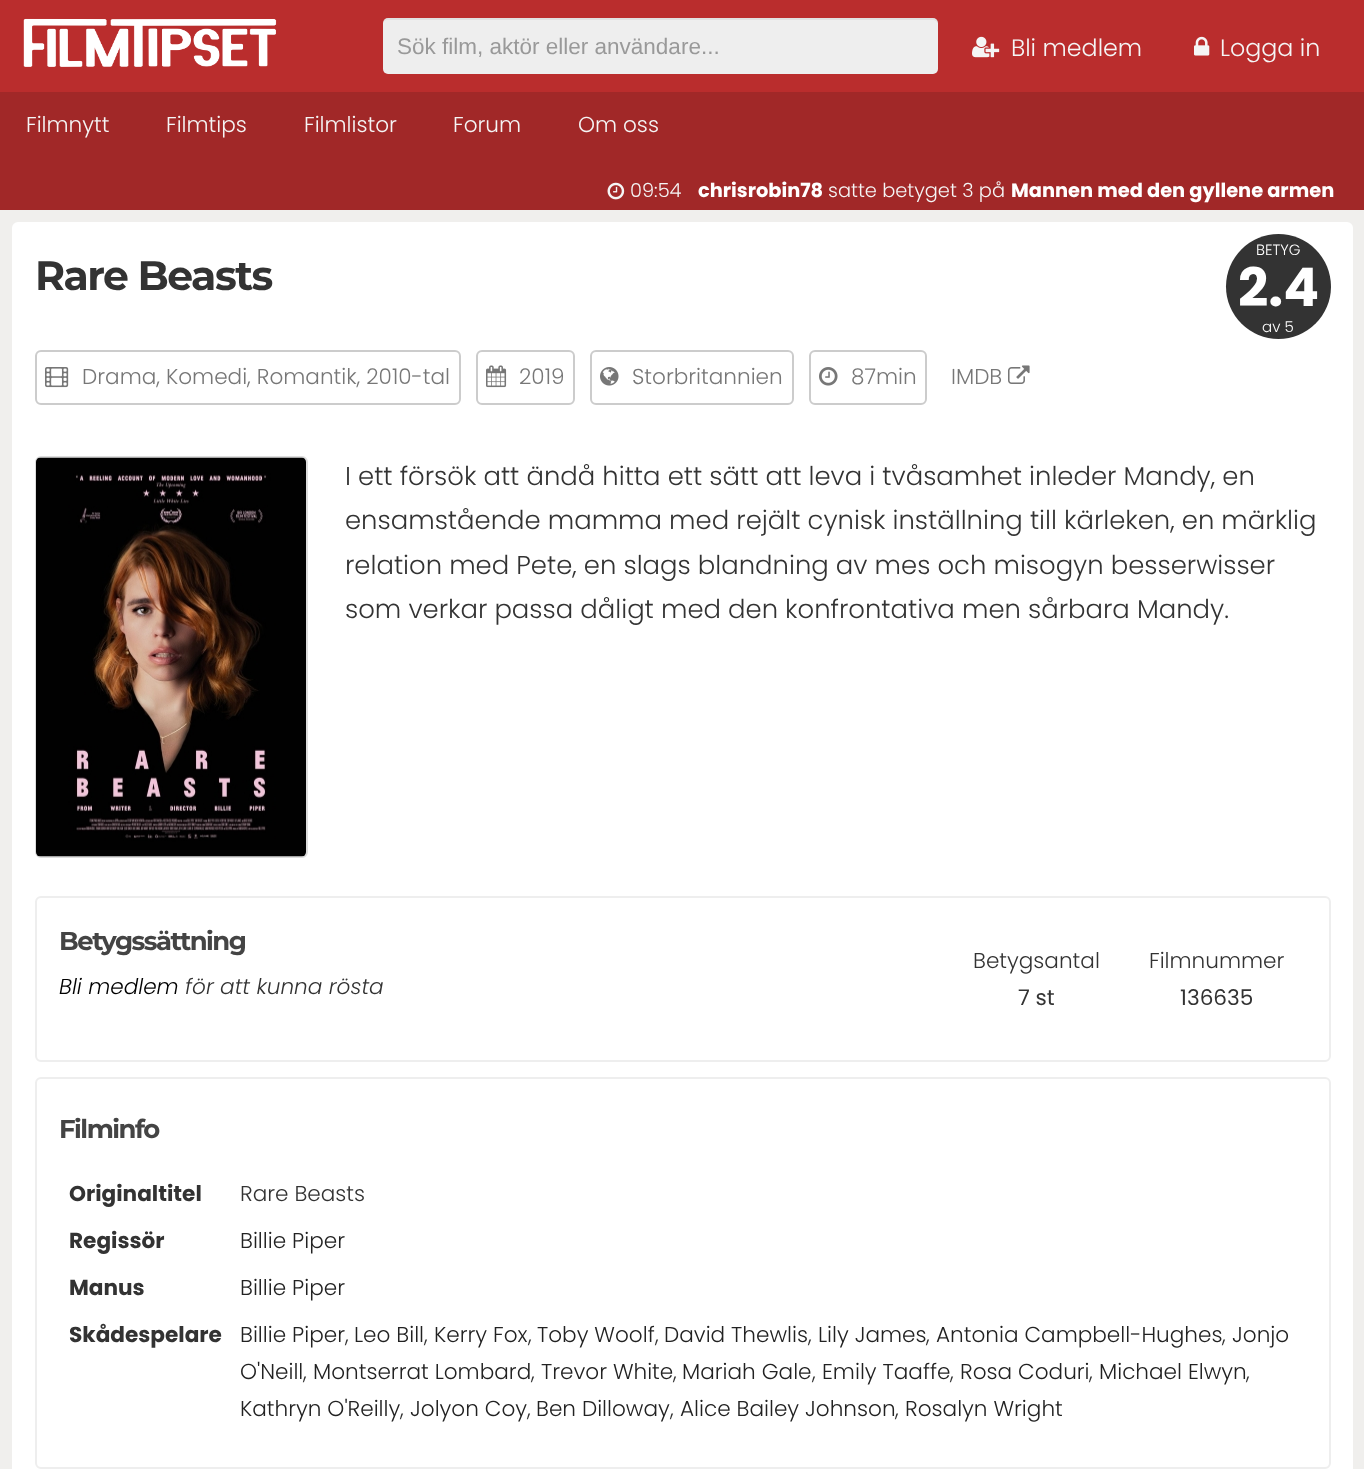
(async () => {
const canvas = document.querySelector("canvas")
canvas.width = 1364
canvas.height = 1469
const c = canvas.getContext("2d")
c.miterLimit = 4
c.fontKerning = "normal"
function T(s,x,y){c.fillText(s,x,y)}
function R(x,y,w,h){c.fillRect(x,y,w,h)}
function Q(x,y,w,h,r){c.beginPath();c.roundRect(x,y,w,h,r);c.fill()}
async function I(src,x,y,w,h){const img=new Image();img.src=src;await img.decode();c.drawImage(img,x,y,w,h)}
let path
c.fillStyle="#f0efed"
R(0,0,1364,1469)
c.fillStyle="#ba2d2d"
R(0,0,1364,92)
await I("1.png",23,18,254,49)
c.fillStyle="#eee"
Q(383,18,555,56,5)
c.fillStyle="#0000000d"
path = new Path2D("M387 20h546c2 0 5 2 5 4v-1c0-3-2-5-5-5h-545c-2 0-4 2-5 4c1-1 3-2 4-2z")
c.fill(path)
c.font="22.5px Liberation Sans"
c.fillStyle="#999"
T("Sök film, aktör eller användare...",397,54)
await I("2.png",972,36,28,22)
c.font="300 23.75px Poppins"
c.fillStyle="#f5f5f5"
T("Bli medlem",1011,56)
await I("3.png",1194,36,16,20)
T("Logga in",1220,56)
c.fillStyle="#a12828"
R(0,92,1364,118)
c.font="300 21.6px Poppins"
c.fillStyle="#f5f5f5"
T("Filmnytt",26,132)
T("Filmtips",166,132)
T("Filmlistor",304,132)
T("Forum",453,132)
T("Om oss",578,132)
await I("4.png",607,182,18,18)
c.font="300 19.4px Poppins"
T("09:54",630,197)
c.font="bold 19.4px Poppins"
c.fillStyle="#fff"
T("chrisrobin78",698,197)
c.font="300 19.4px Poppins"
c.fillStyle="#f5f5f5"
T("satte betyget 3 på",828,197)
c.font="bold 19.4px Poppins"
c.fillStyle="#fff"
T("Mannen med den gyllene armen",1011,197)
Q(12,222,1341,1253,6)
c.letterSpacing="-1.5px"
c.font="bold 41px Montserrat"
c.fillStyle="#333"
T("Rare Beasts",35,290)
c.beginPath()
c.arc(1278.5,286.5,52.5,0,7)
c.fill()
c.letterSpacing="0px"
c.font="300 15px Poppins"
c.fillStyle="#fff"
T("BETYG",1256,255)
c.font="bold 53px Poppins"
T("2.4",1238,306)
c.font="300 15px Poppins"
T("av 5",1262,332)
c.beginPath()
c.roundRect(36,351,424,53,5)
c.strokeStyle="#ccc"
c.lineWidth=2
c.stroke()
await I("5.png",45,367,24,21)
c.font="300 21.6px Poppins"
c.fillStyle="#777"
T("Drama, Komedi, Romantik, 2010-tal",82,384)
c.beginPath()
c.roundRect(477,351,97,53,5)
c.stroke()
await I("6.png",486,365,21,23)
T("2019",519,384)
c.beginPath()
c.roundRect(591,351,202,53,5)
c.stroke()
await I("7.png",600,367,19,19)
T("Storbritannien",632,384)
c.beginPath()
c.roundRect(810,351,116,53,5)
c.stroke()
await I("8.png",819,367,19,19)
T("87min",851,384)
T("IMDB",951,384)
await I("9.png",1008,365,22,19)
c.beginPath()
c.roundRect(36,457,271,400,5)
c.strokeStyle="#ddd"
c.stroke()
await I("10.png",36,457,270,400)
c.font="300 25.9px Poppins"
c.fillStyle="#333"
T("I ett försök att ändå hitta ett sätt att leva i tvåsamhet inleder Mandy, en",345,485)
T("ensamstående mamma med rejält cynisk inställning till kärleken, en märklig",345,529)
T("relation med Pete, en slags blandning av mes och misogyn besserwisser",345,574)
T("som verkar passa dåligt med den konfrontativa men sårbara Mandy.",345,618)
c.beginPath()
c.roundRect(36,897,1294,164,5)
c.strokeStyle="#eee"
c.stroke()
c.letterSpacing="-1.5px"
c.font="bold 25.9px Montserrat"
c.fillStyle="#444"
T("Betygssättning",59,950)
c.letterSpacing="0px"
c.font="italic 300 21.6px Poppins"
c.fillStyle="#000"
T("Bli medlem",59,994)
c.fillStyle="#333"
T("för att kunna rösta",185,994)
c.font="300 21.6px Poppins"
T("Betygsantal",973,968)
c.font="21.6px Poppins"
T("7 st",1018,1005)
c.font="300 21.6px Poppins"
T("Filmnummer",1149,968)
c.font="21.6px Poppins"
T("136635",1180,1005)
c.beginPath()
c.roundRect(36,1078,1294,390,5)
c.stroke()
c.letterSpacing="-1.5px"
c.font="bold 25.9px Montserrat"
c.fillStyle="#444"
T("Filminfo",59,1138)
c.letterSpacing="0px"
c.font="bold 21.6px Poppins"
c.fillStyle="#333"
T("Originaltitel",69,1201)
c.font="300 21.6px Poppins"
T("Rare Beasts",240,1201)
c.font="bold 21.6px Poppins"
T("Regissör",69,1248)
c.font="300 21.6px Poppins"
c.fillStyle="#222"
T("Billie Piper",240,1248)
c.font="bold 21.6px Poppins"
c.fillStyle="#333"
T("Manus",69,1295)
c.font="300 21.6px Poppins"
c.fillStyle="#222"
T("Billie Piper",240,1295)
c.font="bold 21.6px Poppins"
c.fillStyle="#333"
T("Skådespelare",69,1342)
c.font="300 21.6px Poppins"
c.fillStyle="#222"
T("Billie Piper",240,1342)
c.fillStyle="#333"
T(",",345,1342)
c.fillStyle="#222"
T("Leo Bill",354,1342)
c.fillStyle="#333"
T(",",424,1342)
c.fillStyle="#222"
T("Kerry Fox",434,1342)
c.fillStyle="#333"
T(",",528,1342)
c.fillStyle="#222"
T("Toby Woolf",537,1342)
c.fillStyle="#333"
T(",",655,1342)
c.fillStyle="#222"
T("David Thewlis",664,1342)
c.fillStyle="#333"
T(",",808,1342)
c.fillStyle="#222"
T("Lily James",818,1342)
c.fillStyle="#333"
T(",",926,1342)
c.fillStyle="#222"
T("Antonia Campbell-Hughes",936,1342)
c.fillStyle="#333"
T(",",1222,1342)
c.fillStyle="#222"
T("Jonjo",1232,1342)
T("O'Neill",240,1379)
c.fillStyle="#333"
T(",",303,1379)
c.fillStyle="#222"
T("Montserrat Lombard",313,1379)
c.fillStyle="#333"
T(",",531,1379)
c.fillStyle="#222"
T("Trevor White",541,1379)
c.fillStyle="#333"
T(",",673,1379)
c.fillStyle="#222"
T("Mariah Gale",682,1379)
c.fillStyle="#333"
T(",",812,1379)
c.fillStyle="#222"
T("Emily Taaffe",822,1379)
c.fillStyle="#333"
T(",",950,1379)
c.fillStyle="#222"
T("Rosa Coduri",960,1379)
c.fillStyle="#333"
T(",",1089,1379)
c.fillStyle="#222"
T("Michael Elwyn",1099,1379)
c.fillStyle="#333"
T(",",1246,1379)
c.fillStyle="#222"
T("Kathryn O'Reilly",240,1416)
c.fillStyle="#333"
T(",",400,1416)
c.fillStyle="#222"
T("Jolyon Coy",410,1416)
c.fillStyle="#333"
T(",",527,1416)
c.fillStyle="#222"
T("Ben Dilloway",536,1416)
c.fillStyle="#333"
T(",",670,1416)
c.fillStyle="#222"
T("Alice Bailey Johnson",680,1416)
c.fillStyle="#333"
T(",",895,1416)
c.fillStyle="#222"
T("Rosalyn Wright",905,1416)
})()
